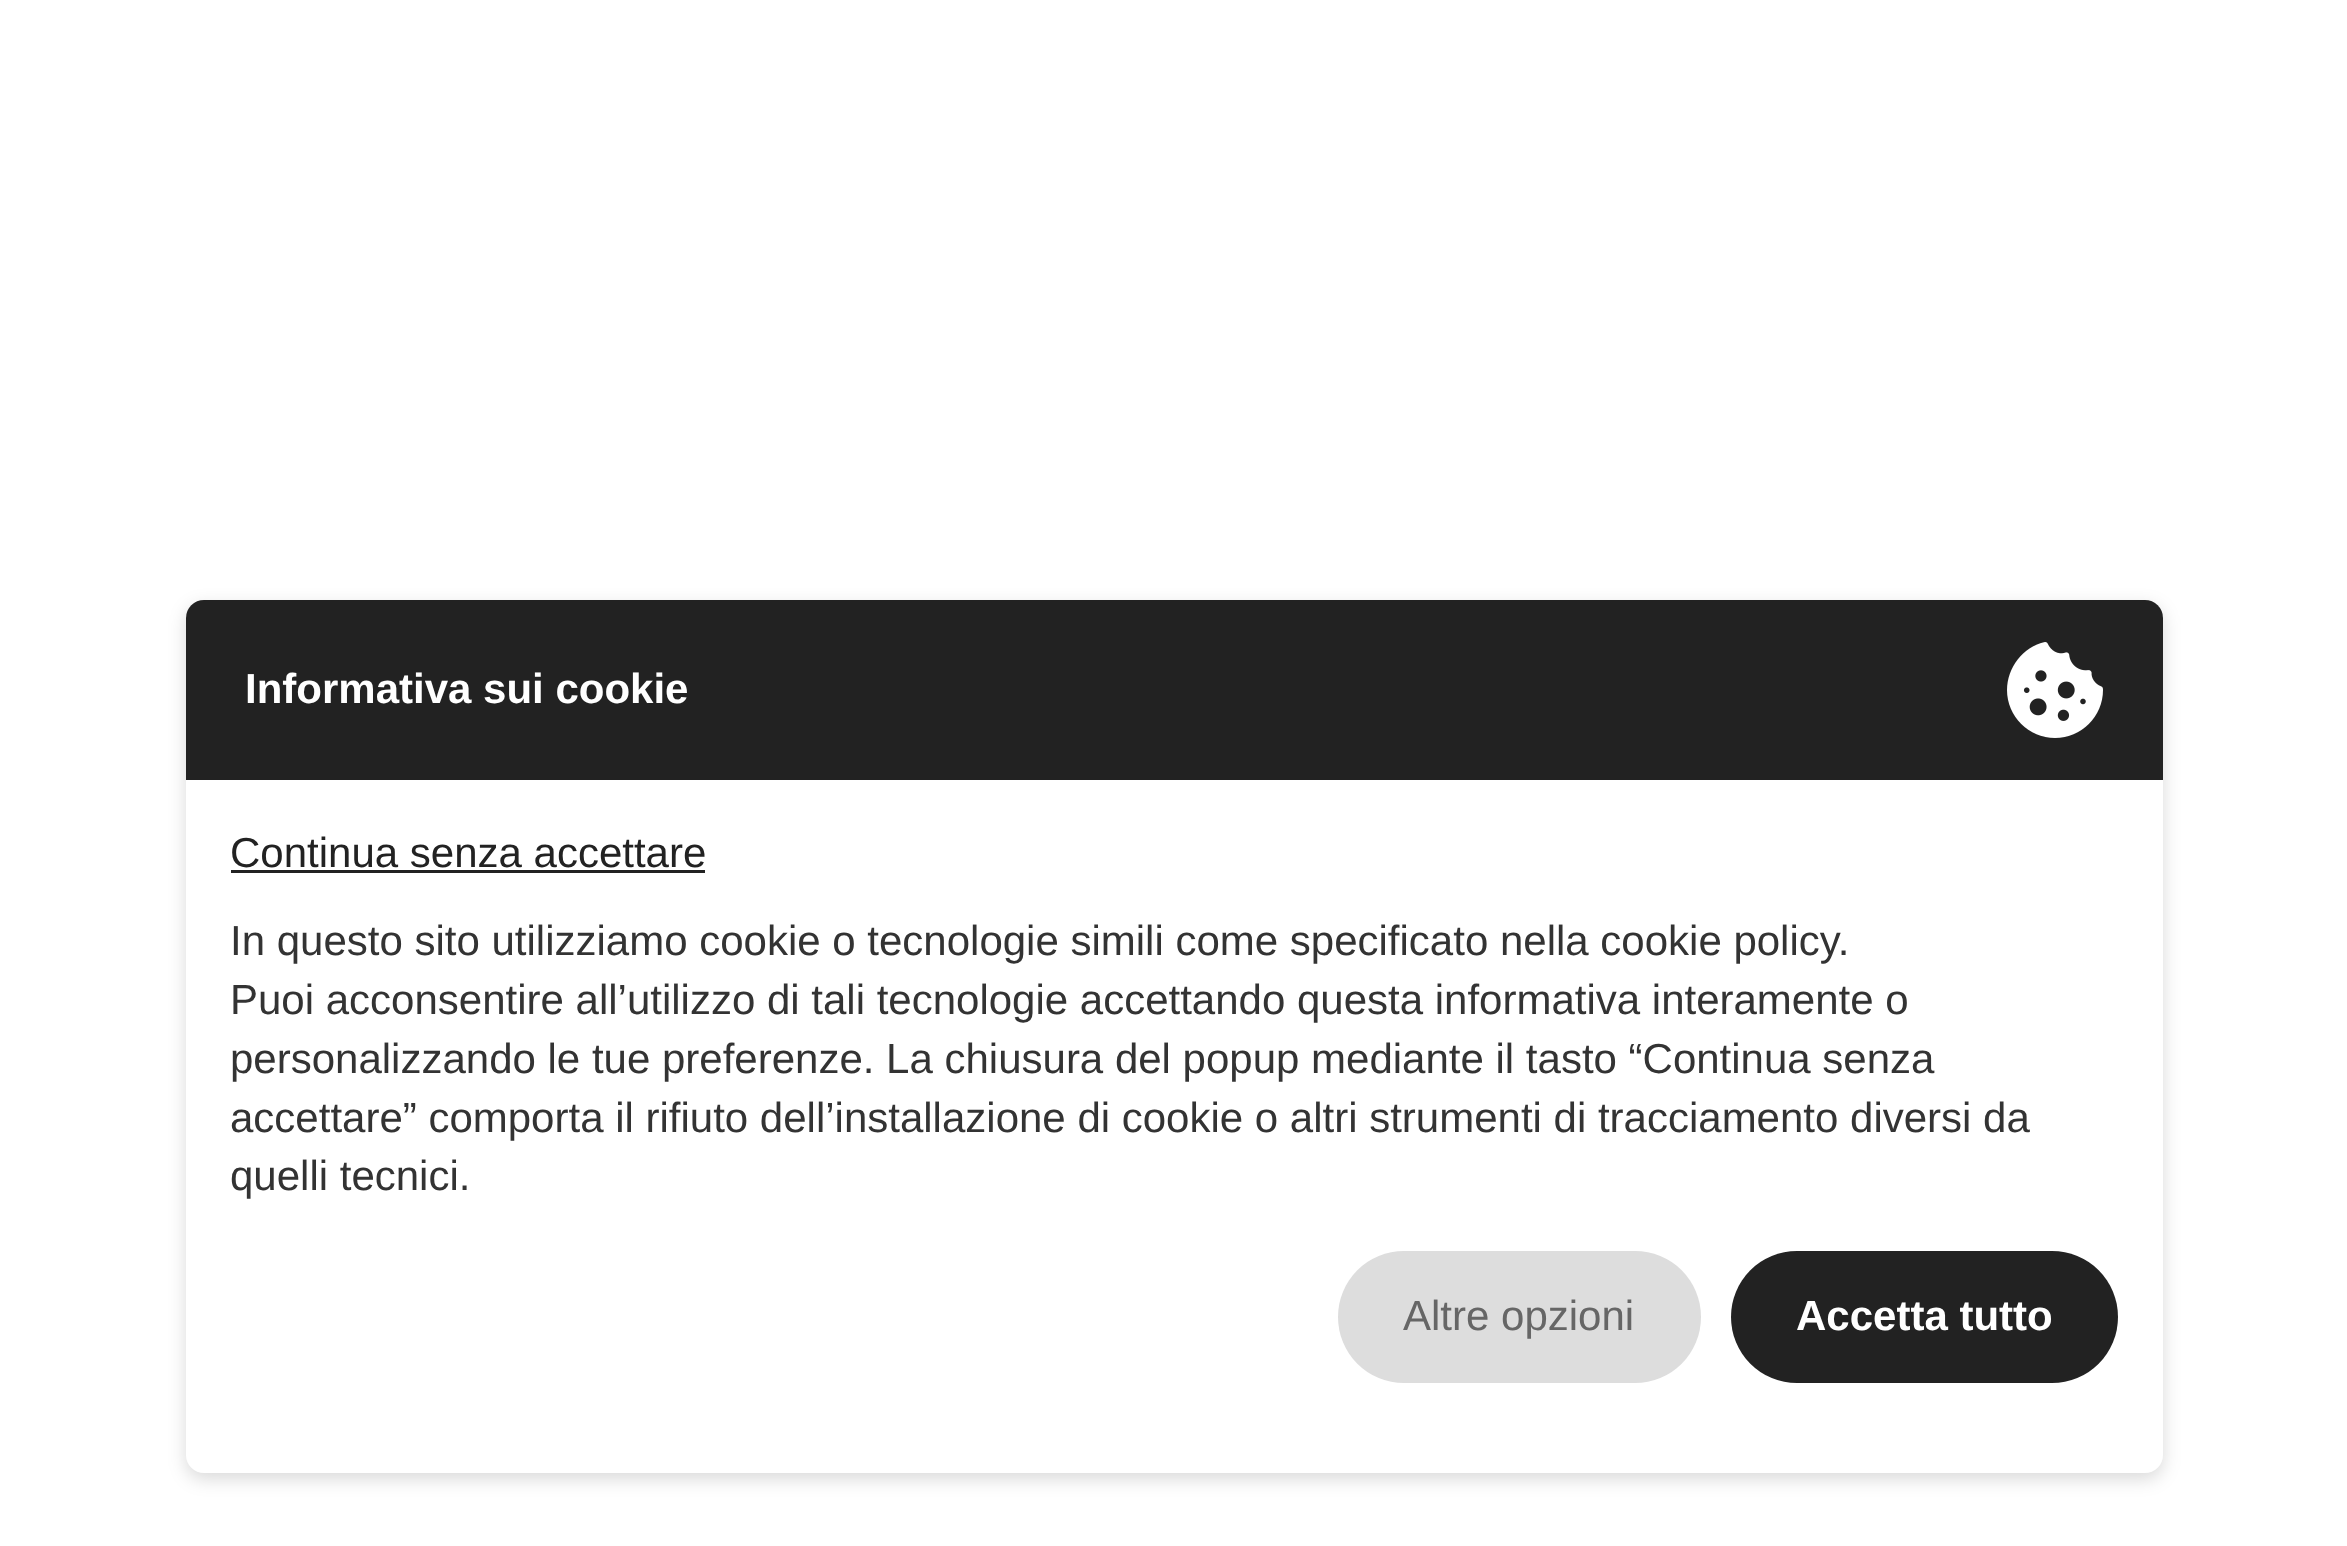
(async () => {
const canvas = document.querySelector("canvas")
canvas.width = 2347
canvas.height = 1546
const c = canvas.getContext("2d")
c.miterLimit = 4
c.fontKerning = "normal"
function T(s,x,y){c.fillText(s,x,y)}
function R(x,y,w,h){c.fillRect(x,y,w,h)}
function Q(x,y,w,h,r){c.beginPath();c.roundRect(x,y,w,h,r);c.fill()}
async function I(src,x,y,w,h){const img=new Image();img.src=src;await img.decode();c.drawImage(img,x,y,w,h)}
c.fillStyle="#fff"
R(0,0,2347,1546)
c.fillStyle="#00000026"
c.filter="blur(9px)"
c.beginPath()
c.roundRect(186,606,1977,873,18)
c.fill()
c.filter="none"
c.fillStyle="#fff"
Q(186,600,1977,873,18)
c.fillStyle="#222"
c.beginPath()
c.roundRect(186,600,1977,180,[18,18,0,0])
c.fill()
c.font="bold 42px Liberation Sans"
c.fillStyle="#fff"
T("Informativa sui cookie",245,703)
await I("1.png",2007,642,96,96)
c.font="42px Liberation Sans"
c.fillStyle="#222"
T("Continua senza accettare",230,867)
R(231,870,474,3)
c.fillStyle="#333"
T("In questo sito utilizziamo cookie o tecnologie simili come specificato nella cookie policy.",230,955)
T("Puoi acconsentire all’utilizzo di tali tecnologie accettando questa informativa interamente o",230,1014)
T("personalizzando le tue preferenze. La chiusura del popup mediante il tasto “Continua senza",230,1073)
T("accettare” comporta il rifiuto dell’installazione di cookie o altri strumenti di tracciamento diversi da",230,1132)
T("quelli tecnici.",230,1190)
c.fillStyle="#ddd"
Q(1338,1251,363,132,66)
c.fillStyle="#666"
T("Altre opzioni",1403,1330)
c.fillStyle="#222"
Q(1731,1251,387,132,66)
c.font="bold 42px Liberation Sans"
c.fillStyle="#fff"
T("Accetta tutto",1796,1330)
})()
